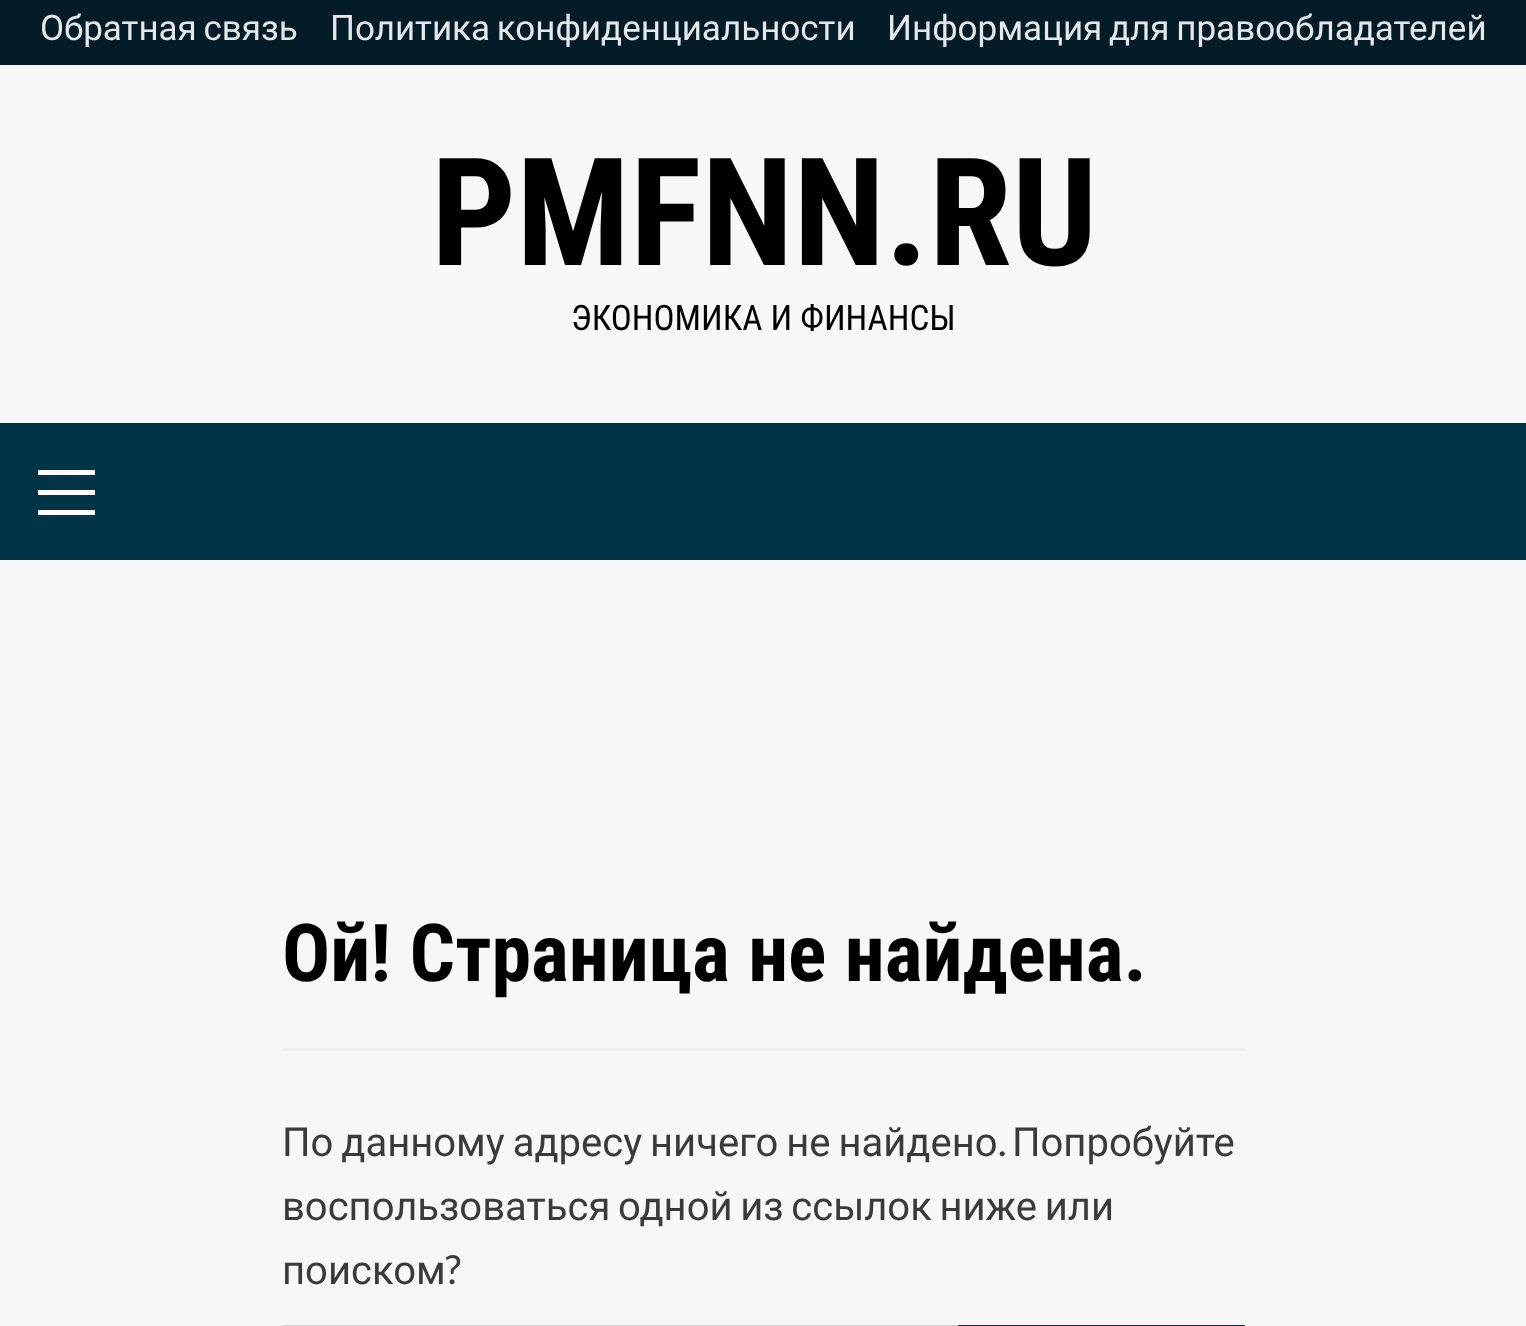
(async () => {
const canvas = document.querySelector("canvas")
canvas.width = 1526
canvas.height = 1326
const c = canvas.getContext("2d")
c.miterLimit = 4
c.fontKerning = "normal"
function T(s,x,y){c.fillText(s,x,y)}
function R(x,y,w,h){c.fillRect(x,y,w,h)}
c.fillStyle="#f7f7f7"
R(0,0,1526,1326)
c.fillStyle="#031c27"
R(0,0,1526,65)
c.wordSpacing="-2px"
c.font="35px Roboto"
c.fillStyle="#e6e8e9"
T("Обратная связь",40,40)
T("Политика конфиденциальности",330,40)
T("Информация для правообладателей",887,40)
c.wordSpacing="0px"
c.font="bold 150px Roboto Condensed"
c.fillStyle="#000"
T("PMFNN.RU",431,265)
c.font="35px Roboto Condensed"
T("ЭКОНОМИКА И ФИНАНСЫ",571,330)
c.fillStyle="#003446"
R(0,423,1526,137)
c.fillStyle="#fff"
R(38,490,57,5)
R(38,470,57,5)
R(38,510,57,5)
c.fillStyle="#eee"
R(283,1048,962,3)
c.font="bold 80px Roboto Condensed"
c.fillStyle="#000"
T("Ой! Страница не найдена.",282,981)
c.wordSpacing="-2px"
c.font="40px Roboto"
c.fillStyle="#3a3a3a"
T("По данному адресу ничего не найдено",282,1156)
c.wordSpacing="0px"
c.font="40px Lato"
T(".",998,1156)
c.font="40px Roboto"
T("Попробуйте",1012,1156)
c.wordSpacing="-2.25px"
T("воспользоваться одной из ссылок ниже или",282,1220)
c.wordSpacing="0px"
T("поиском",282,1284)
c.font="40px Lato"
T("?",445,1284)
c.strokeStyle="#ccc"
c.lineWidth=3
c.strokeRect(284.5,1326.5,672,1)
c.fillStyle="#003446"
R(958,1325,287,1)
})()
